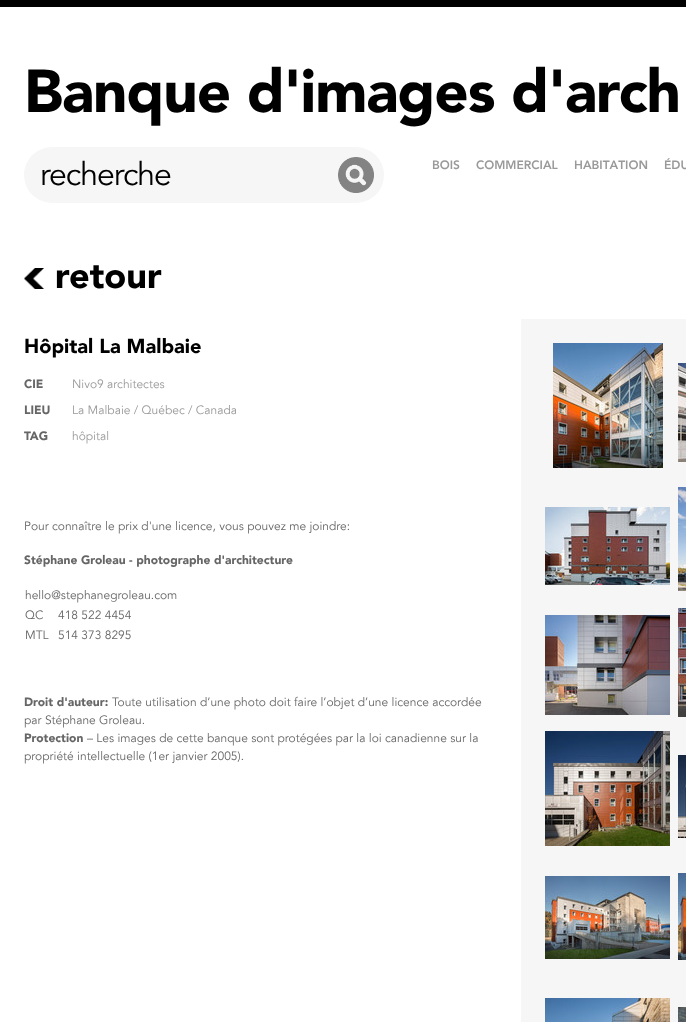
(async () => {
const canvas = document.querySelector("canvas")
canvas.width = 686
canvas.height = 1022
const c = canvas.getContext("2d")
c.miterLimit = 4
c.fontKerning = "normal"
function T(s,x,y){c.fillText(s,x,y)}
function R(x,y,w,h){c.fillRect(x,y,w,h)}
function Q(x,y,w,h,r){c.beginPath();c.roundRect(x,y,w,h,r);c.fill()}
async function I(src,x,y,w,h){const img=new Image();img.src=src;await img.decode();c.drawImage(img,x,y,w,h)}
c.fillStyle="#fff"
R(0,0,686,1022)
c.fillStyle="#000"
R(0,0,686,7)
c.letterSpacing="-1px"
c.font="900 60px Avenir"
T("Banque d'images d'arch",24,112)
c.fillStyle="#f6f6f6"
Q(24,147,360,56,28)
c.font="32px Avenir"
c.fillStyle="#000"
T("recherche",40,185)
await I("1.png",338,157,36,36)
c.letterSpacing="0px"
c.font="900 12px 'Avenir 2'"
c.fillStyle="#999"
T("BOIS",432,169)
T("COMMERCIAL",476,169)
T("HABITATION",574,169)
T("ÉDU",664,169)
await I("2.png",24,268,20,21)
c.font="900 36px Avenir"
c.fillStyle="#000"
T("retour",55,288)
c.font="900 20px Avenir"
T("Hôpital La Malbaie",24,353)
c.font="900 12px Avenir"
c.fillStyle="#666"
T("CIE",24,388)
c.font="12px Avenir"
c.fillStyle="#999"
T("Nivo9 architectes",72,388)
c.font="900 12px Avenir"
c.fillStyle="#666"
T("LIEU",24,414)
c.font="12px Avenir"
c.fillStyle="#999"
T("La Malbaie / Québec / Canada",72,414)
c.font="900 12px Avenir"
c.fillStyle="#666"
T("TAG",24,440)
c.font="12px Avenir"
c.fillStyle="#999"
T("hôpital",72,440)
c.fillStyle="#666"
T("Pour connaître le prix d'une licence, vous pouvez me joindre:",24,530)
c.font="900 12px Avenir"
T("Stéphane Groleau - photographe d'architecture",24,564)
c.font="12px Avenir"
T("hello@stephanegroleau.com",25,599)
T("QC",25,619)
T("418 522 4454",58,619)
T("MTL",25,639)
T("514 373 8295",58,639)
c.font="900 12px Avenir"
T("Droit d'auteur:",24,706)
c.font="12px Avenir"
T("Toute utilisation d’une photo doit faire l’objet d’une licence accordée",112,706)
T("par Stéphane Groleau.",24,724)
c.font="900 12px Avenir"
T("Protection",24,742)
c.font="12px Avenir"
T("– Les images de cette banque sont protégées par la loi canadienne sur la",87,742)
T("propriété intellectuelle (1er janvier 2005).",24,760)
c.fillStyle="#f6f6f6"
R(521,319,165,703)
await I("3.png",553,343,110,125)
await I("4.png",678,363,8,99)
await I("5.png",545,507,125,78)
await I("6.png",678,487,8,104)
await I("7.png",545,615,125,100)
await I("8.png",678,608,8,109)
await I("9.png",545,731,125,115)
await I("10.png",678,755,8,83)
await I("11.png",545,876,125,83)
await I("12.png",678,873,8,87)
await I("13.png",545,998,125,24)
await I("14.png",678,1007,8,15)
})()
